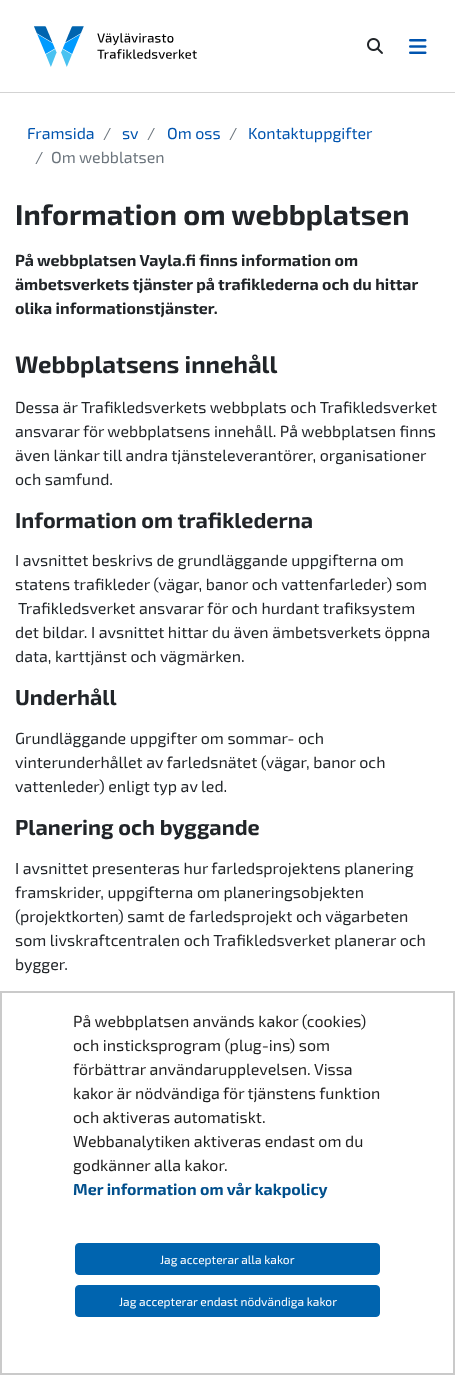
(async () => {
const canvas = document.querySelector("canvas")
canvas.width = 455
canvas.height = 1375
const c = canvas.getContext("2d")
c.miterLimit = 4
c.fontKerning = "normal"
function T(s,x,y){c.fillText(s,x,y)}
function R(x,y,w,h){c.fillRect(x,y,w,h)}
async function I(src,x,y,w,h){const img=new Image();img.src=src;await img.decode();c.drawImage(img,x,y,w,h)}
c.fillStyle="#fff"
R(0,0,455,1375)
c.fillStyle="#d3d3d3"
R(0,92,455,1)
await I("1.png",34,26,163,41)
await I("2.png",367,38,16,16)
await I("3.png",409,39,18,15)
c.font="16px 'Exo 2'"
c.fillStyle="#0054af"
T("Framsida",27,139)
c.fillStyle="#6c757d"
T("/",103,139)
c.fillStyle="#0054af"
T("sv",122,139)
c.fillStyle="#6c757d"
T("/",147,139)
c.fillStyle="#0054af"
T("Om oss",167,139)
c.fillStyle="#6c757d"
T("/",229,139)
c.fillStyle="#0054af"
T("Kontaktuppgifter",248,139)
c.fillStyle="#6c757d"
T("/",35,163)
T("Om webblatsen",51,163)
c.font="bold 28.75px 'Exo 2'"
c.fillStyle="#212529"
T("Information om webbplatsen",15,225)
c.font="bold 16px 'Exo 2'"
T("På webbplatsen Vayla.fi finns information om",15,266)
T("ämbetsverkets tjänster på trafiklederna och du hittar",15,290)
T("olika informationstjänster.",15,314)
c.font="bold 24px 'Exo 2'"
T("Webbplatsens innehåll",15,373)
c.font="16px 'Exo 2'"
T("Dessa är Trafikledsverkets webbplats och Trafikledsverket",15,413)
T("ansvarar för webbplatsens innehåll. På webbplatsen finns",15,437)
T("även länkar till andra tjänsteleverantörer, organisationer",15,461)
T("och samfund.",15,485)
c.font="bold 21.6px 'Exo 2'"
T("Information om trafiklederna",15,528)
c.font="16px 'Exo 2'"
T("I avsnittet beskrivs de grundläggande uppgifterna om",15,566)
T("statens trafikleder (vägar, banor och vattenfarleder) som",15,590)
T("Trafikledsverket ansvarar för och hurdant trafiksystem",18,614)
T("det bildar. I avsnittet hittar du även ämbetsverkets öppna",15,638)
T("data, karttjänst och vägmärken.",15,662)
c.font="bold 21.6px 'Exo 2'"
T("Underhåll",15,705)
c.font="16px 'Exo 2'"
T("Grundläggande uppgifter om sommar- och",15,744)
T("vinterunderhållet av farledsnätet (vägar, banor och",15,768)
T("vattenleder) enligt typ av led.",15,792)
c.font="bold 21.6px 'Exo 2'"
T("Planering och byggande",15,835)
c.font="16px 'Exo 2'"
T("I avsnittet presenteras hur farledsprojektens planering",15,874)
T("framskrider, uppgifterna om planeringsobjekten",15,898)
T("(projektkorten) samt de farledsprojekt och vägarbeten",15,922)
T("som livskraftcentralen och Trafikledsverket planerar och",15,946)
T("bygger.",15,970)
c.strokeStyle="#cacaca"
c.lineWidth=2
c.strokeRect(1,992,453,382)
c.fillStyle="#212121"
T("På webbplatsen används kakor (cookies)",73,1027)
T("och insticksprogram (plug-ins) som",73,1051)
T("förbättrar användarupplevelsen. Vissa",73,1075)
T("kakor är nödvändiga för tjänstens funktion",73,1099)
T("och aktiveras automatiskt.",73,1123)
T("Webbanalytiken aktiveras endast om du",73,1147)
T("godkänner alla kakor.",73,1171)
c.font="bold 16px 'Exo 2'"
c.fillStyle="#004f8c"
T("Mer information om vår kakpolicy",73,1195)
c.fillStyle="#0064af"
c.beginPath()
c.roundRect(75.5,1243.5,304,31,3.5)
c.fill()
c.strokeStyle="#0064af"
c.lineWidth=1
c.stroke()
c.font="12px 'Exo 2'"
c.fillStyle="#fff"
T("Jag accepterar alla kakor",160,1264)
c.fillStyle="#0064af"
c.beginPath()
c.roundRect(75.5,1285.5,304,31,3.5)
c.fill()
c.stroke()
c.fillStyle="#fff"
T("Jag accepterar endast nödvändiga kakor",119,1306)
})()
